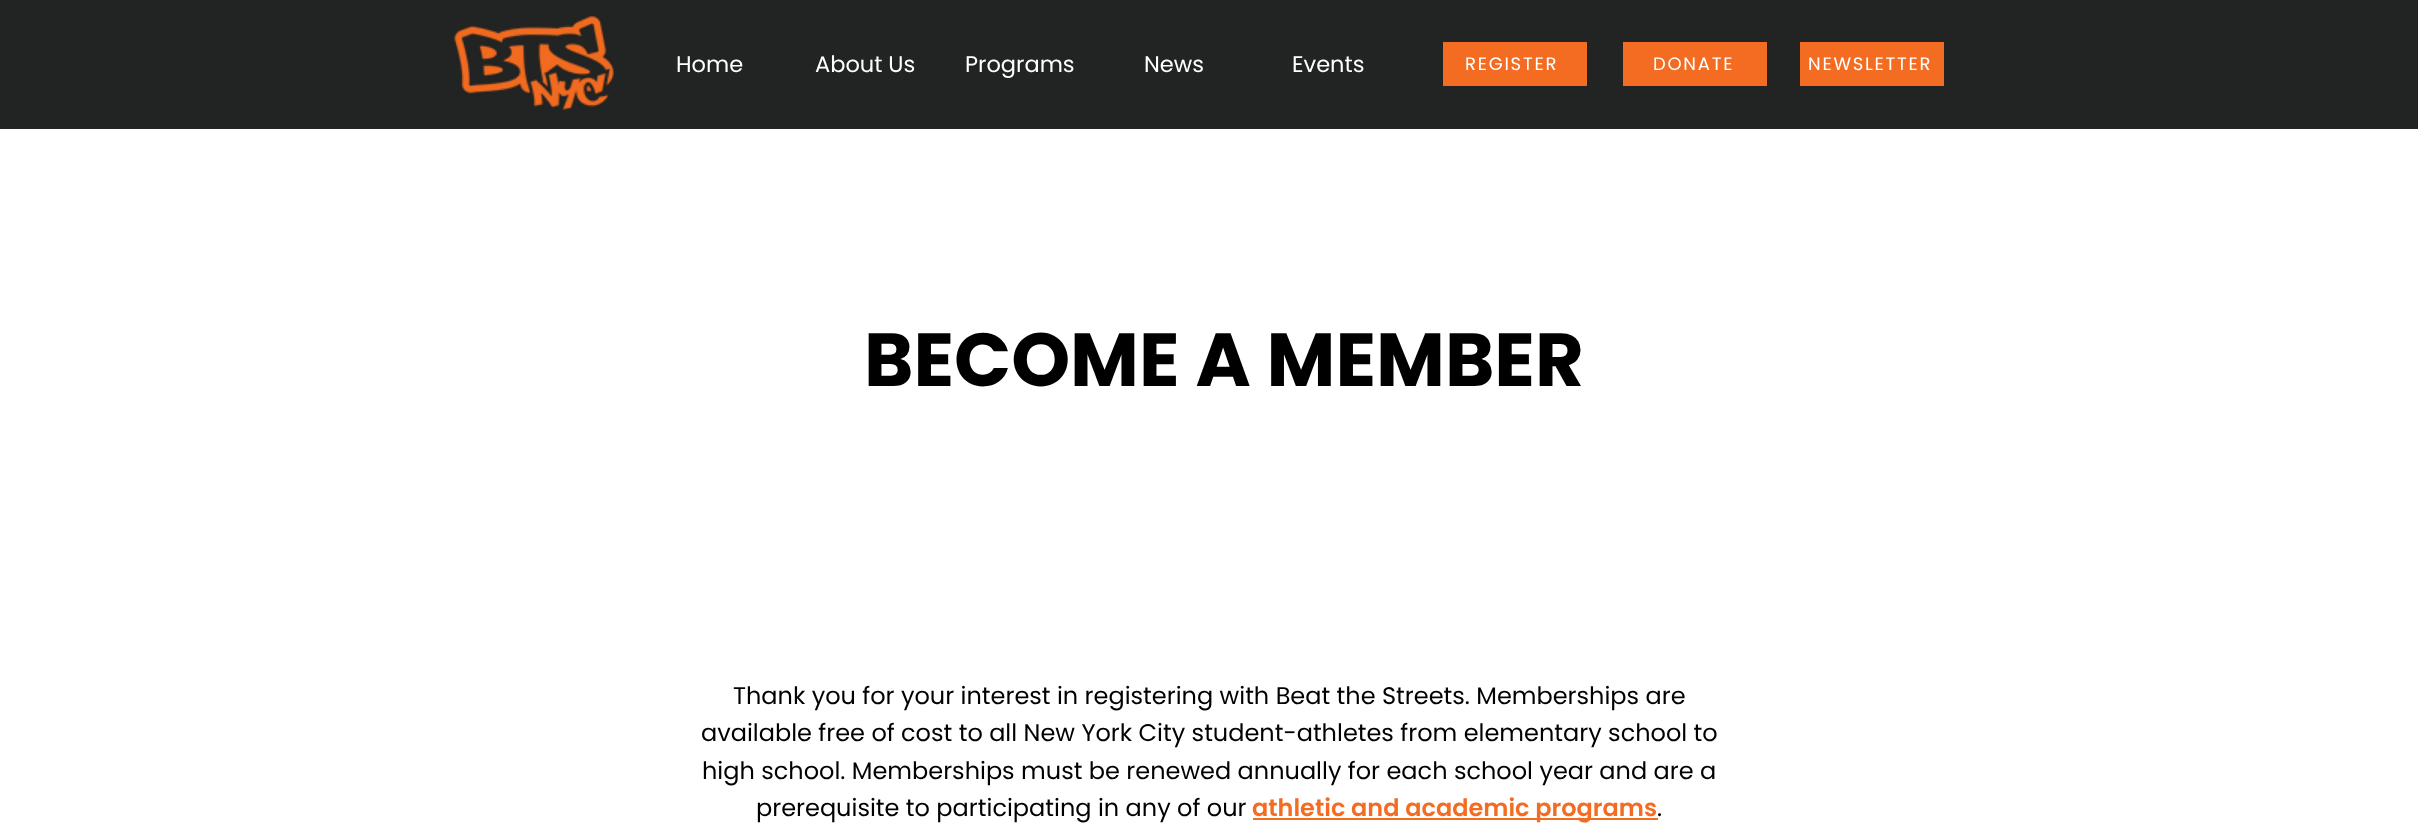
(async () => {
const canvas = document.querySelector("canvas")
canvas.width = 2418
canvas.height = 824
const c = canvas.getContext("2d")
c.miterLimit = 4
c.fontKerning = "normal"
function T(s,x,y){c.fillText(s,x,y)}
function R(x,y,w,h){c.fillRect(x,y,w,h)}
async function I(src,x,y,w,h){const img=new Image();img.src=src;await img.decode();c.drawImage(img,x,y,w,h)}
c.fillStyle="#fff"
R(0,0,2418,824)
c.fillStyle="#222323"
R(0,0,2418,129)
await I("1.png",454,15,160,95)
c.font="22.5px Poppins"
c.fillStyle="#fff"
T("Home",676,72)
T("About Us",815,72)
T("Programs",965,72)
T("News",1144,72)
T("Events",1292,72)
c.fillStyle="#f36c21"
R(1443,42,144,44)
c.letterSpacing="1.75px"
c.font="18px Poppins"
c.fillStyle="#fff"
T("REGISTER",1465,70)
c.fillStyle="#f36c21"
R(1623,42,144,44)
c.fillStyle="#fff"
T("DONATE",1653,70)
c.fillStyle="#f36c21"
R(1800,42,144,44)
c.fillStyle="#fff"
T("NEWSLETTER",1808,70)
c.letterSpacing="0px"
c.font="bold 75px Poppins"
c.fillStyle="#000"
T("BECOME A MEMBER",864,386)
c.font="24px Poppins"
T("Thank you for your interest in registering with Beat the Streets. Memberships are",733,704)
T("available free of cost to all New York City student-athletes from elementary school to",701,741)
T("high school. Memberships must be renewed annually for each school year and are a",702,779)
T("prerequisite to participating in any of our",756,816)
c.fillStyle="#f36c21"
R(1253,818,405,2)
c.font="600 24px Poppins"
T("athletic and academic programs",1252,816)
c.font="24px Poppins"
c.fillStyle="#000"
T(".",1657,816)
})()
